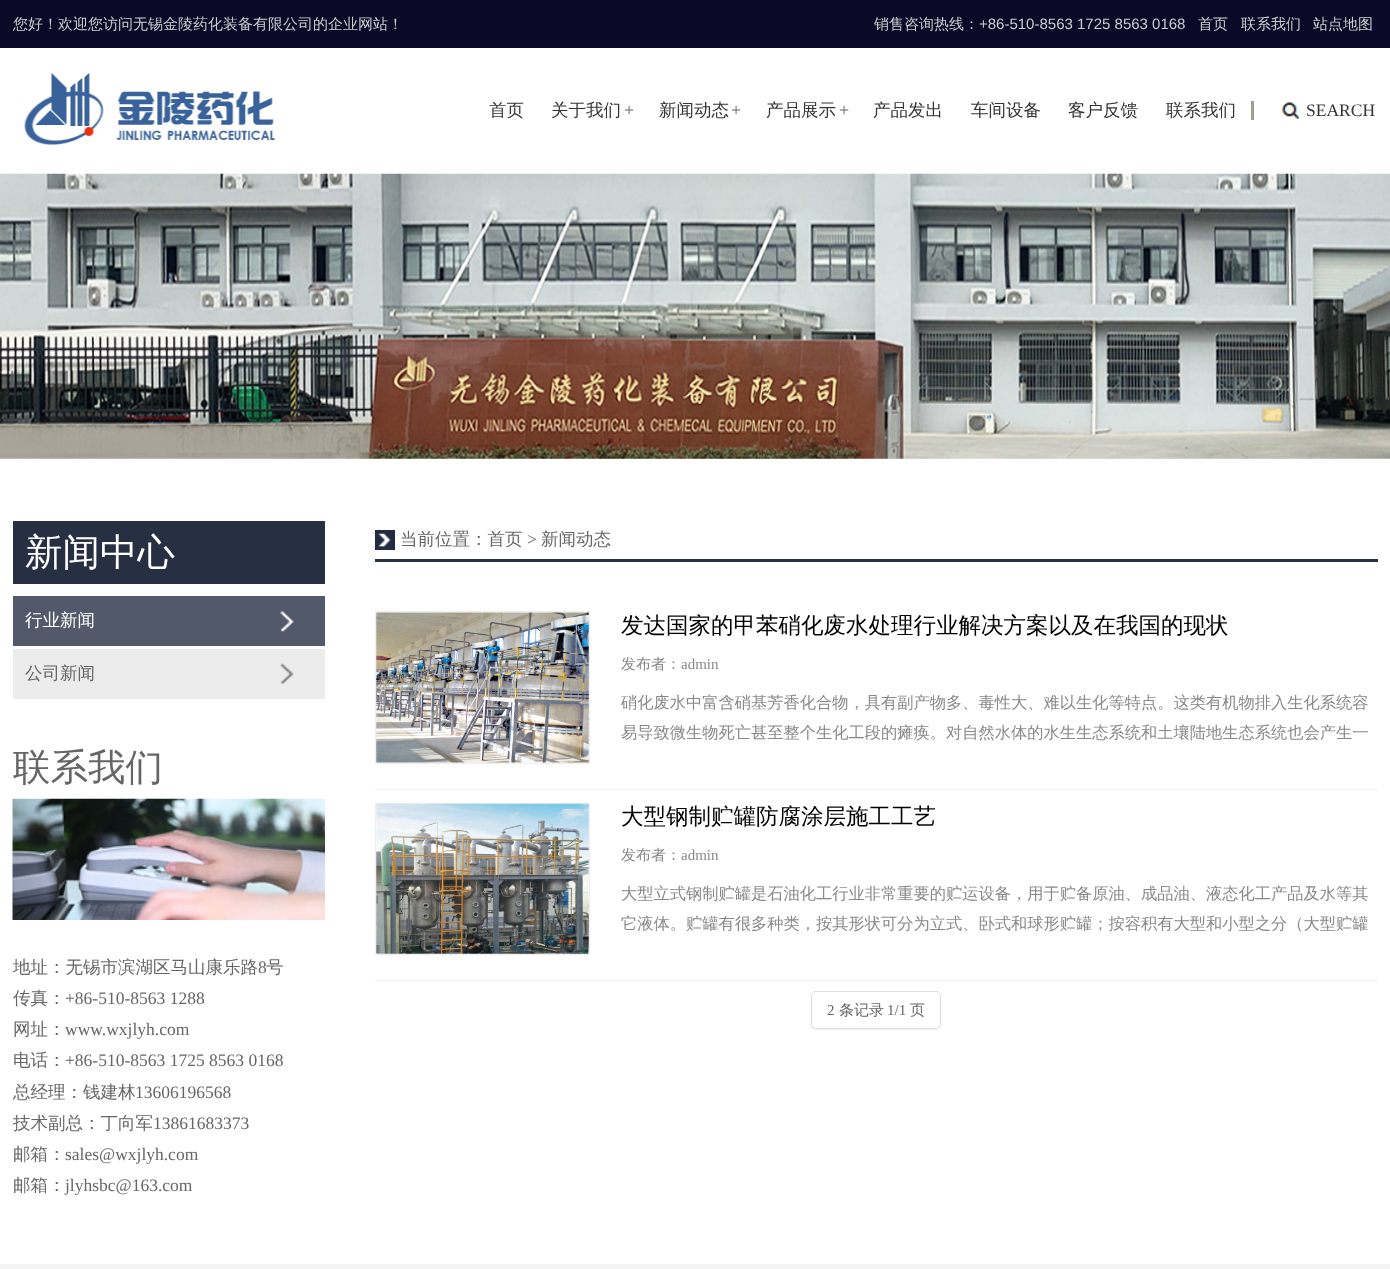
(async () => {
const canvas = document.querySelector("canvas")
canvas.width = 1390
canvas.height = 1269
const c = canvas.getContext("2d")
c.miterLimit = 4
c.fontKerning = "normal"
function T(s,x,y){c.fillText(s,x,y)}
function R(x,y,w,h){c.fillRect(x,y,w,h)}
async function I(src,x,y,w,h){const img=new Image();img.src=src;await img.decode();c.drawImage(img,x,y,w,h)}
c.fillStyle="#fff"
R(0,0,1390,1269)
c.fillStyle="#0a0928"
R(0,0,1390,48)
c.font="500 15px WenQuanYi Zen Hei"
c.fillStyle="#ccc"
T("您好！欢迎您访问无锡金陵药化装备有限公司的企业网站！",13,29)
T("销售咨询热线：",874,29)
c.font="15px Liberation Sans"
T("+86-510-8563 1725 8563 0168",979,29)
c.font="500 15px WenQuanYi Zen Hei"
T("首页",1198,29)
T("联系我们",1241,29)
T("站点地图",1313,29)
await I("1.png",24,73,252,73)
c.font="500 17.5px WenQuanYi Zen Hei"
c.fillStyle="#333"
T("首页",489,116)
T("关于我们",551,116)
c.font="18px Liberation Serif"
c.fillStyle="#666"
T("+",624,116)
c.font="500 17.5px WenQuanYi Zen Hei"
c.fillStyle="#333"
T("新闻动态",659,116)
c.font="18px Liberation Serif"
c.fillStyle="#666"
T("+",731,116)
c.font="500 17.5px WenQuanYi Zen Hei"
c.fillStyle="#333"
T("产品展示",766,116)
c.font="18px Liberation Serif"
c.fillStyle="#666"
T("+",839,116)
c.font="500 17.5px WenQuanYi Zen Hei"
c.fillStyle="#333"
T("产品发出",873,116)
T("车间设备",971,116)
T("客户反馈",1068,116)
T("联系我们",1166,116)
c.fillStyle="#9f9f8f"
R(1251,101,3,19)
await I("2.png",1281,102,19,17)
c.font="17.5px Liberation Serif"
c.fillStyle="#333"
T("SEARCH",1306,116)
await I("3.png",0,173,1390,286)
c.fillStyle="#272f42"
R(13,521,312,63)
c.font="500 37.5px WenQuanYi Zen Hei"
c.fillStyle="#fff"
T("新闻中心",25,565)
c.fillStyle="#52596a"
R(13,596,312,50)
await I("4.png",280,611,14,21)
c.font="500 17.5px WenQuanYi Zen Hei"
c.fillStyle="#fff"
T("行业新闻",25,626)
c.fillStyle="#ececec"
R(13,649,312,50)
await I("5.png",280,663,14,21)
c.fillStyle="#666"
T("公司新闻",25,679)
c.font="500 37.5px WenQuanYi Zen Hei"
T("联系我们",13,780)
await I("6.png",12,798,313,122)
c.font="500 17.5px WenQuanYi Zen Hei"
T("地址：无锡市滨湖区马山康乐路",13,973)
c.font="17.5px Liberation Serif"
T("8",258,973)
c.font="500 17.5px WenQuanYi Zen Hei"
T("号",266,973)
T("传真：",13,1004)
c.font="17.5px Liberation Serif"
T("+86-510-8563 1288",65,1004)
c.font="500 17.5px WenQuanYi Zen Hei"
T("网址：",13,1035)
c.font="17.5px Liberation Serif"
T("www.wxjlyh.com",65,1035)
c.font="500 17.5px WenQuanYi Zen Hei"
T("电话：",13,1066)
c.font="17.5px Liberation Serif"
T("+86-510-8563 1725 8563 0168",65,1066)
c.font="500 17.5px WenQuanYi Zen Hei"
T("总经理：钱建林",13,1098)
c.font="17.5px Liberation Serif"
T("13606196568",135,1098)
c.font="500 17.5px WenQuanYi Zen Hei"
T("技术副总：丁向军",13,1129)
c.font="17.5px Liberation Serif"
T("13861683373",153,1129)
c.font="500 17.5px WenQuanYi Zen Hei"
T("邮箱：",13,1160)
c.font="17.5px Liberation Serif"
T("sales@wxjlyh.com",65,1160)
c.font="500 17.5px WenQuanYi Zen Hei"
T("邮箱：",13,1191)
c.font="17.5px Liberation Serif"
T("jlyhsbc@163.com",65,1191)
await I("7.png",375,530,20,20)
c.fillStyle="#272f42"
R(375,559,1003,3)
c.font="500 17.5px WenQuanYi Zen Hei"
c.fillStyle="#666"
T("当前位置：首页",400,545)
c.font="17.5px Liberation Serif"
T(">",527,545)
c.font="500 17.5px WenQuanYi Zen Hei"
T("新闻动态",541,545)
c.fillStyle="#f2f2f2"
R(375,789,1003,1)
c.strokeStyle="#eee"
c.strokeRect(375.5,611.5,214,152)
await I("8.png",376,612,213,151)
c.font="500 22.5px WenQuanYi Zen Hei"
c.fillStyle="#000"
T("发达国家的甲苯硝化废水处理行业解决方案以及在我国的现状",621,633)
c.font="500 15px WenQuanYi Zen Hei"
c.fillStyle="#888"
T("发布者：",621,669)
c.font="15px Liberation Serif"
T("admin",681,669)
c.font="500 16.25px WenQuanYi Zen Hei"
T("硝化废水中富含硝基芳香化合物，具有副产物多、毒性大、难以生化等特点。这类有机物排入生化系统容",621,708)
T("易导致微生物死亡甚至整个生化工段的瘫痪。对自然水体的水生生态系统和土壤陆地生态系统也会产生一",621,738)
c.fillStyle="#f2f2f2"
R(375,980,1003,1)
c.strokeRect(375.5,803.5,214,151)
await I("9.png",376,803,213,151)
c.font="500 22.5px WenQuanYi Zen Hei"
c.fillStyle="#000"
T("大型钢制贮罐防腐涂层施工工艺",621,824)
c.font="500 15px WenQuanYi Zen Hei"
c.fillStyle="#888"
T("发布者：",621,860)
c.font="15px Liberation Serif"
T("admin",681,860)
c.font="500 16.25px WenQuanYi Zen Hei"
T("大型立式钢制贮罐是石油化工行业非常重要的贮运设备，用于贮备原油、成品油、液态化工产品及水等其",621,899)
T("它液体。贮罐有很多种类，按其形状可分为立式、卧式和球形贮罐；按容积有大型和小型之分（大型贮罐",621,929)
c.fillStyle="#0000000d"
c.filter="blur(1px)"
c.beginPath()
c.roundRect(811,993,130,37,5)
c.fill()
c.filter="none"
c.fillStyle="#fff"
c.beginPath()
c.roundRect(811.5,991.5,129,37,4.5)
c.fill()
c.strokeStyle="#ddd"
c.stroke()
c.font="15px Liberation Serif"
c.fillStyle="#666"
T("2",827,1015)
c.font="500 15px WenQuanYi Zen Hei"
T("条记录",839,1015)
c.font="15px Liberation Serif"
T("1/1",887,1015)
c.font="500 15px WenQuanYi Zen Hei"
T("页",910,1015)
c.fillStyle="#f3f3f3"
R(0,1264,1390,5)
})()
